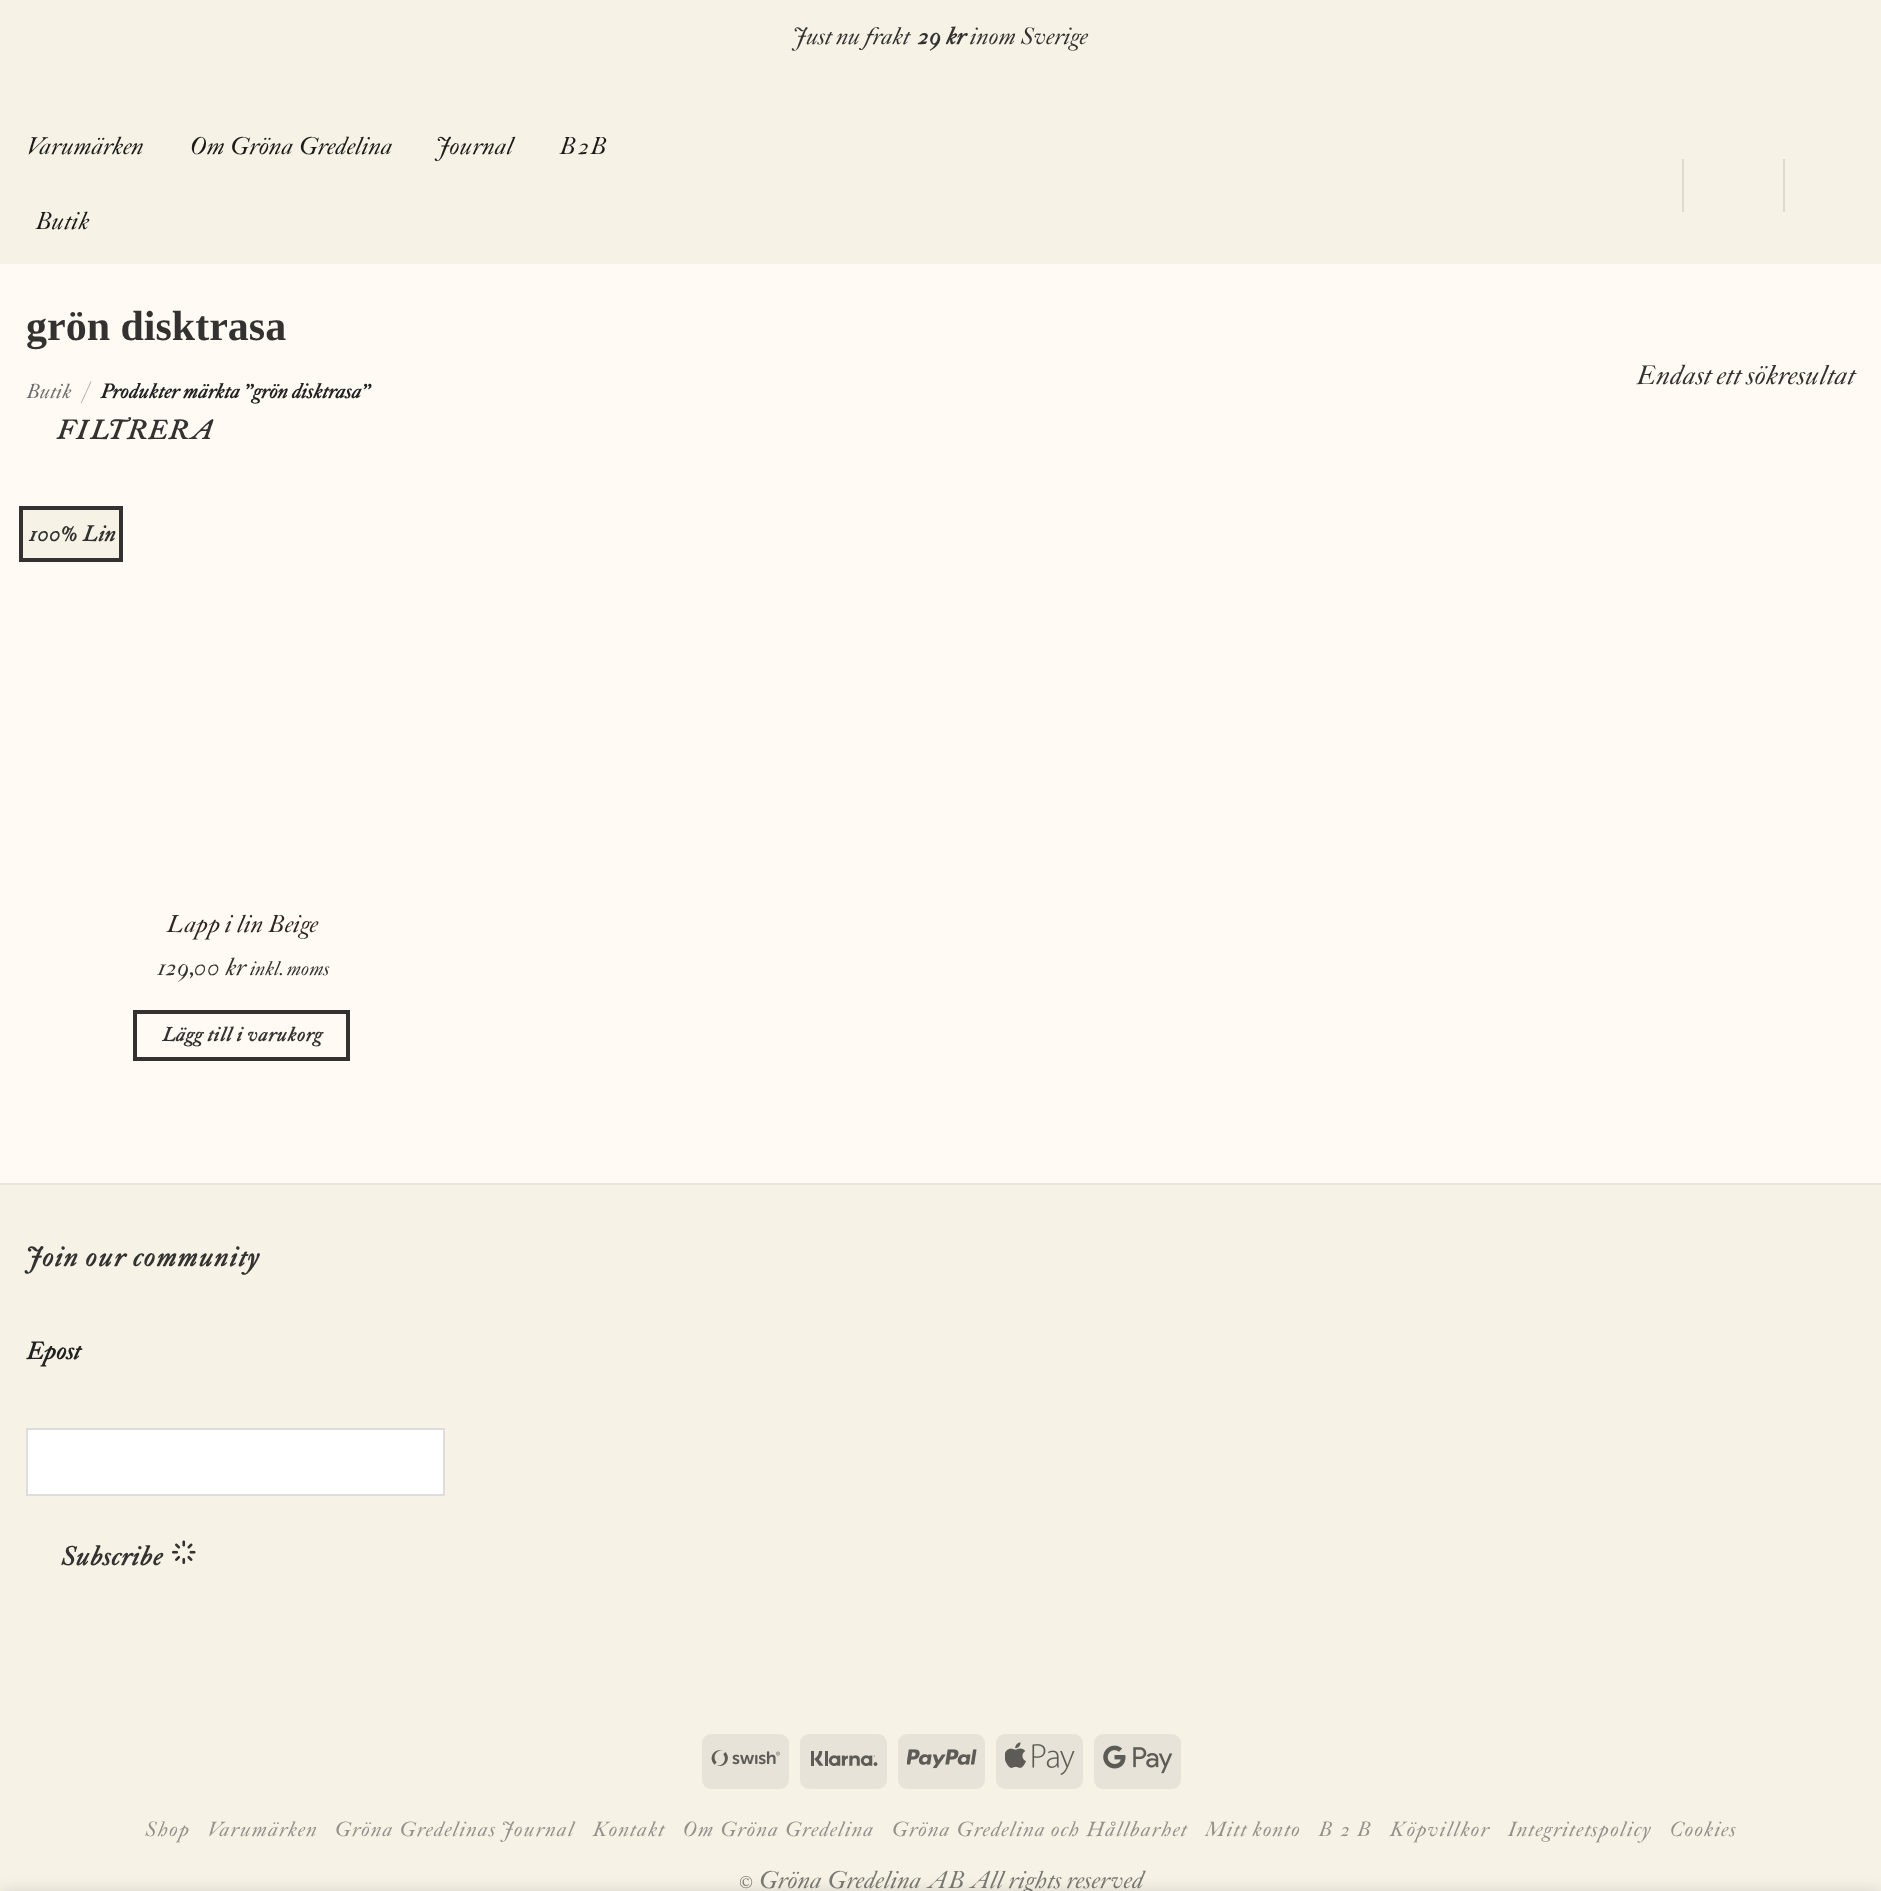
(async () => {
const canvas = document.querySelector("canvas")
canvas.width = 1881
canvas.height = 1891
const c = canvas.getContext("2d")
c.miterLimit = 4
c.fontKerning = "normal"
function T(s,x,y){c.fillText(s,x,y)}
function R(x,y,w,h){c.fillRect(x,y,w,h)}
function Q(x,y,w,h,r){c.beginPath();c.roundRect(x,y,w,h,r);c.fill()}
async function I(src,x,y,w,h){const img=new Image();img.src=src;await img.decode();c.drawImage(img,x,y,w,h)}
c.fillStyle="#fffbf4"
R(0,0,1881,1891)
c.fillStyle="#f6f2e6"
R(0,0,1881,264)
c.font="italic 24.5px 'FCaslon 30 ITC'"
c.fillStyle="#333230"
T("Just nu frakt",793,44)
c.font="italic bold 24.5px 'FCaslon 30 ITC'"
T("29 kr",915,44)
c.font="italic 24.5px 'FCaslon 30 ITC'"
T("inom Sverige",970,44)
c.font="italic 25.25px 'FCaslon 30 ITC'"
c.fillStyle="#1b1b19"
T("Varumärken",26,154)
T("Om Gröna Gredelina",189,154)
T("Journal",436,154)
T("B2B",559,154)
T("Butik",35,229)
c.fillStyle="#dddacf"
R(1682,159,2,53)
R(1783,159,2,53)
c.font="bold 42px Liberation Serif"
c.fillStyle="#333230"
T("grön disktrasa",26,340)
c.font="italic 21px 'FCaslon 30 ITC'"
c.fillStyle="#6e6d6c"
T("Butik",26,398)
c.fillStyle="#b2afaa"
T("/",82,398)
c.font="italic bold 21px 'FCaslon 30 ITC'"
c.fillStyle="#222"
T("Produkter märkta ”grön disktrasa”",100,398)
c.letterSpacing="1.4px"
c.font="italic bold 28px 'FCaslon 30 ITC'"
c.fillStyle="#333230"
T("FILTRERA",56,439)
c.letterSpacing="0px"
c.font="italic 28px 'FCaslon 30 ITC'"
T("Endast ett sökresultat",1636,384)
c.fillStyle="#f6f2e6"
c.beginPath()
c.rect(21,508,100,52)
c.fill()
c.strokeStyle="#333230"
c.lineWidth=4
c.stroke()
c.font="italic bold 22.5px 'FCaslon 30 ITC'"
c.fillStyle="#333230"
T("100% Lin",26,541)
c.font="italic 25.25px 'FCaslon 30 ITC'"
c.fillStyle="#312420"
T("Lapp i lin Beige",165,932)
c.fillStyle="#333230"
T("129,00 kr",154,975)
c.font="italic 20.25px 'FCaslon 30 ITC'"
T("inkl. moms",250,975)
c.strokeRect(135,1012,213,47)
c.letterSpacing="0.6px"
c.font="italic bold 20.25px 'FCaslon 30 ITC'"
T("Lägg till i varukorg",161,1041)
c.fillStyle="#f6f2e6"
R(0,1185,1881,706)
c.fillStyle="#eae6db"
R(0,1183,1881,2)
c.letterSpacing="1.4px"
c.font="italic bold 28px 'FCaslon 30 ITC'"
c.fillStyle="#333230"
T("Join our community",26,1266)
c.letterSpacing="0px"
c.font="italic bold 25.25px 'FCaslon 30 ITC'"
c.fillStyle="#222"
T("Epost",26,1359)
c.fillStyle="#fff"
c.beginPath()
c.rect(27,1429,417,66)
c.fill()
c.strokeStyle="#ddd"
c.lineWidth=2
c.stroke()
c.letterSpacing="0.75px"
c.font="italic bold 27px 'FCaslon 30 ITC'"
c.fillStyle="#333230"
T("Subscribe",61,1565)
await I("1.png",172,1540,24,24)
c.fillStyle="#e7e3d8"
Q(702,1734,87,55,9)
await I("2.png",711,1750,69,16)
Q(800,1734,87,55,9)
await I("3.png",811,1751,67,15)
Q(898,1734,87,55,9)
await I("4.png",907,1749,70,20)
Q(996,1734,87,55,9)
await I("5.png",1005,1742,70,33)
Q(1094,1734,87,55,9)
await I("6.png",1103,1745,70,29)
c.letterSpacing="1.1px"
c.font="italic 21.4px 'FCaslon 30 ITC'"
c.fillStyle="#94918a"
T("Shop",145,1836)
T("Varumärken",207,1836)
T("Gröna Gredelinas Journal",334,1836)
T("Kontakt",592,1836)
T("Om Gröna Gredelina",682,1836)
T("Gröna Gredelina och Hållbarhet",891,1836)
T("Mitt konto",1204,1836)
T("B 2 B",1318,1836)
T("Köpvillkor",1389,1836)
T("Integritetspolicy",1507,1836)
T("Cookies",1669,1836)
c.letterSpacing="0px"
c.font="italic 25.25px 'FCaslon 30 ITC'"
c.fillStyle="#7b7973"
T("© Gröna Gredelina AB All rights reserved",739,1888)
c.fillStyle="#00000024"
c.filter="blur(8px)"
c.beginPath()
c.rect(0,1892,1881,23)
c.fill()
c.filter="none"
})()
